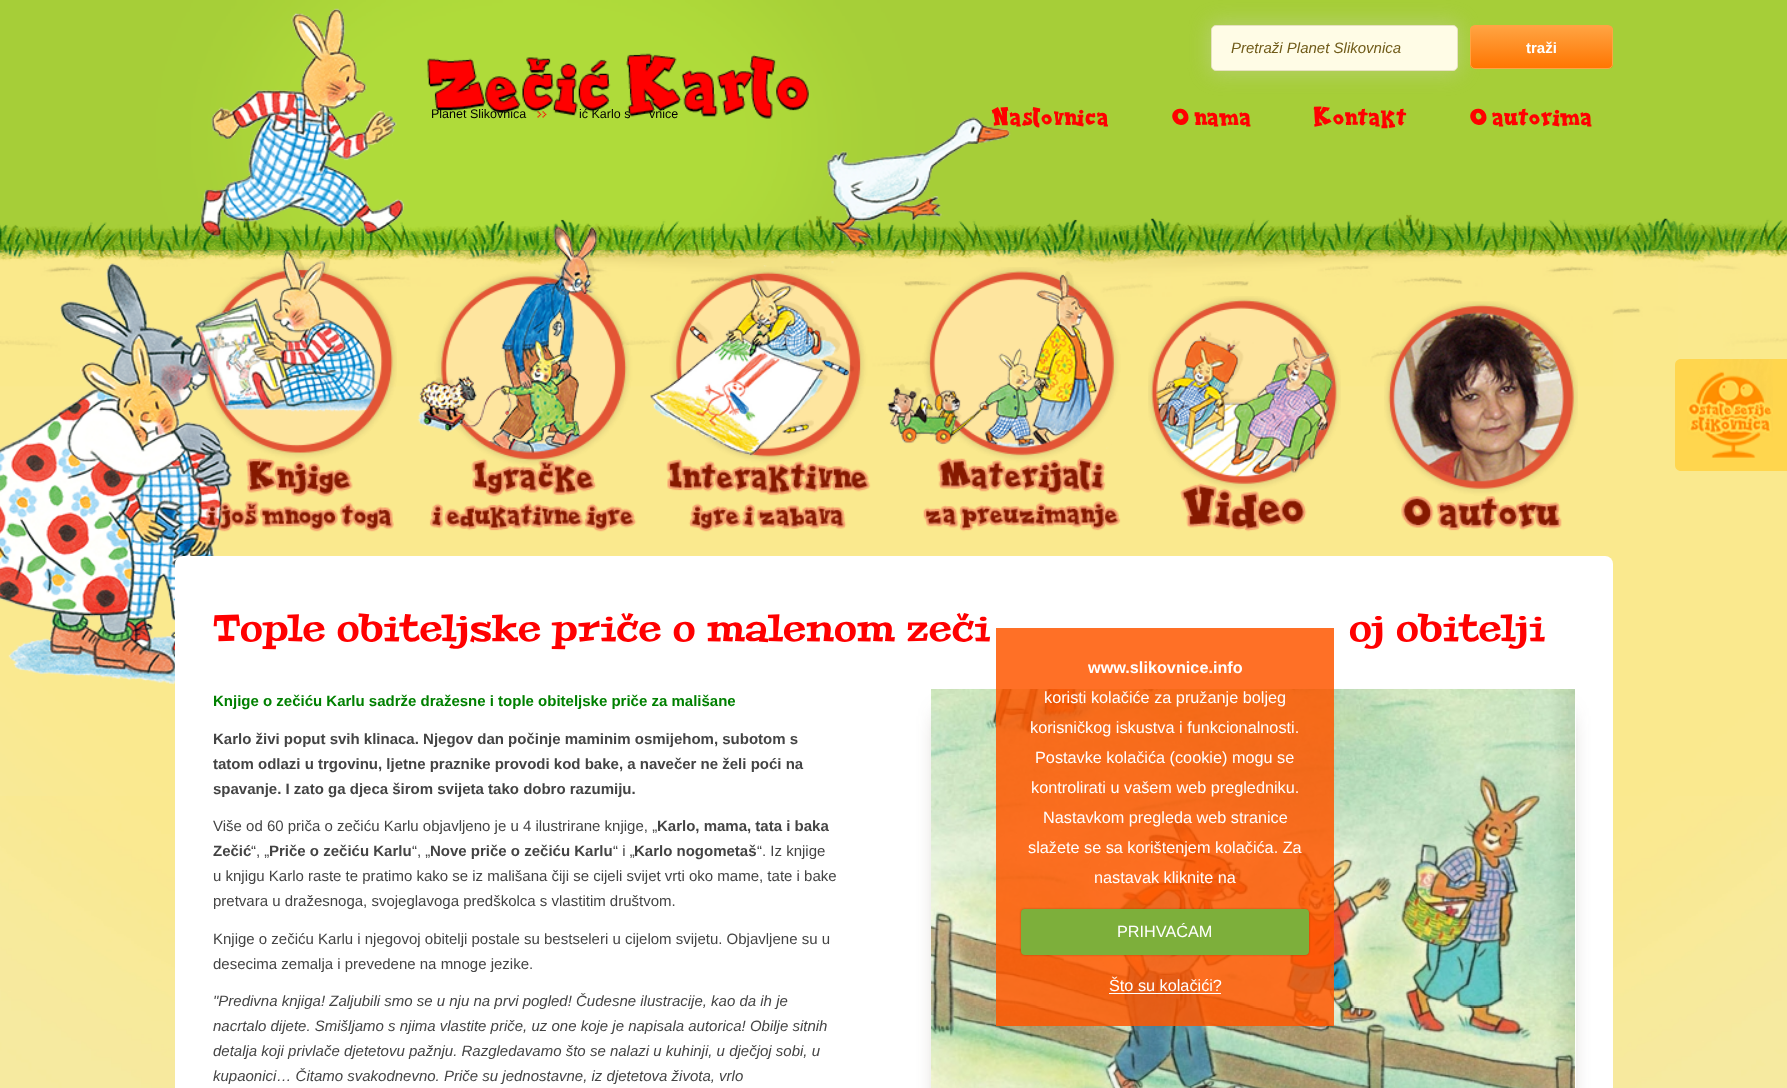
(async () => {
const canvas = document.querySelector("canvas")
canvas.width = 1787
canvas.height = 1088
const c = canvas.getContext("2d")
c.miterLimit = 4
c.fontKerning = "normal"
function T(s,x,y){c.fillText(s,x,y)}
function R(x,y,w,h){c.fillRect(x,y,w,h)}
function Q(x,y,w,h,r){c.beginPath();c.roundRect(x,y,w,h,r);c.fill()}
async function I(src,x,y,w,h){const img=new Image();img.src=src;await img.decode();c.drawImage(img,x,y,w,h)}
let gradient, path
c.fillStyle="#fff"
R(0,0,1787,1088)
await I("1.png",0,796,1787,292)
await I("2.png",0,0,1787,796)
c.fillStyle="#d4d4d44d"
c.filter="blur(9.5px)"
c.beginPath()
c.roundRect(1208,21,253,54,9)
c.fill()
c.filter="none"
c.fillStyle="#fffce6"
c.beginPath()
c.roundRect(1211.5,25.5,246,45,4.5)
c.fill()
c.strokeStyle="#e6e1c0"
c.stroke()
c.font="italic 15px Liberation Sans"
c.fillStyle="#705b19"
T("Pretraži Planet Slikovnica",1231,53)
c.save()
c.beginPath()
c.roundRect(1470,25,143,44,5)
c.clip()
gradient = c.createLinearGradient(1471,26,1471,68)
gradient.addColorStop(0,"#ffa443")
gradient.addColorStop(1,"#ff7602")
c.fillStyle = gradient
R(1470,26,143,42)
c.restore()
c.beginPath()
c.roundRect(1470.5,25.5,142,43,4.5)
c.strokeStyle="#ffa443"
c.stroke()
c.font="bold 15px Liberation Sans"
c.fillStyle="#fff"
T("traži",1526,53)
c.font="12.5px Liberation Sans"
c.fillStyle="#000"
T("Planet Slikovnica",431,118)
await I("4.png",537,111,10,7)
T("ić Karlo s",579,118)
T("vnice",649,118)
await I("3.png",427,53,382,66)
c.font="25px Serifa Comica"
c.fillStyle="#f00"
T("Naslovnica",991,125)
T("O nama",1172,125)
T("Kontakt",1313,125)
T("O autorima",1470,125)
await I("5.png",195,248,202,284)
await I("6.png",417,223,220,309)
await I("7.png",650,265,221,267)
await I("8.png",887,267,234,265)
await I("9.png",1148,296,193,236)
await I("10.png",1384,301,194,230)
c.fillStyle="#fff"
Q(175,556,1438,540,8)
c.font="37.5px Peralta"
c.fillStyle="#f00"
T("Tople obiteljske priče o malenom zeči",213,641)
T("oj obitelji",1349,641)
c.font="bold 15px Liberation Sans"
c.fillStyle="#008000"
T("Knjige o zečiću Karlu sadrže dražesne i tople obiteljske priče za mališane",213,706)
c.fillStyle="#444"
T("Karlo živi poput svih klinaca. Njegov dan počinje maminim osmijehom, subotom s",213,744)
T("tatom odlazi u trgovinu, ljetne praznike provodi kod bake, a navečer ne želi poći na",213,769)
T("spavanje. I zato ga djeca širom svijeta tako dobro razumiju.",213,794)
c.font="15px Liberation Sans"
T("Više od 60 priča o zečiću Karlu objavljeno je u 4 ilustrirane knjige, „",213,831)
c.font="bold 15px Liberation Sans"
T("Karlo, mama, tata i baka",657,831)
T("Zečić",213,856)
c.font="15px Liberation Sans"
T("“, „",251,856)
c.font="bold 15px Liberation Sans"
T("Priče o zečiću Karlu",269,856)
c.font="15px Liberation Sans"
T("“, „",412,856)
c.font="bold 15px Liberation Sans"
T("Nove priče o zečiću Karlu",430,856)
c.font="15px Liberation Sans"
T("“ i „",613,856)
c.font="bold 15px Liberation Sans"
T("Karlo nogometaš",634,856)
c.font="15px Liberation Sans"
T("“. Iz knjige",757,856)
T("u knjigu Karlo raste te pratimo kako se iz mališana čiji se cijeli svijet vrti oko mame, tate i bake",213,881)
T("pretvara u dražesnoga, svojeglavoga predškolca s vlastitim društvom.",213,906)
T("Knjige o zečiću Karlu i njegovoj obitelji postale su bestseleri u cijelom svijetu. Objavljene su u",213,944)
T("desecima zemalja i prevedene na mnoge jezike.",213,969)
c.font="italic 15px Liberation Sans"
T("\"Predivna knjiga! Zaljubili smo se u nju na prvi pogled! Čudesne ilustracije, kao da ih je",213,1006)
T("nacrtalo dijete. Smišljamo s njima vlastite priče, uz one koje je napisala autorica! Obilje sitnih",213,1031)
T("detalja koji privlače djetetovu pažnju. Razgledavamo što se nalazi u kuhinji, u dječjoj sobi, u",213,1056)
T("kupaonici… Čitamo svakodnevno. Priče su jednostavne, iz djetetova života, vrlo",213,1081)
c.fillStyle="#51403199"
c.filter="blur(12.5px)"
c.beginPath()
c.rect(944,716,619,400)
c.fill()
c.filter="none"
c.fillStyle="#fff"
R(1575,702,1,386)
await I("11.png",931,689,644,399)
c.fillStyle="#ffd64e"
path = new Path2D("M1681 359h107v112h-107c-3.5 0-6-2.5-6-6v-100c0-3.5 2.5-6 6-6z")
c.fill(path)
await I("12.png",1687,359,86,99)
c.fillStyle="#ff5700d9"
R(996,628,338,398)
c.font="bold 16.25px Liberation Sans"
c.fillStyle="#fff"
T("www.slikovnice.info",1088,673)
c.font="16.25px Liberation Sans"
T("koristi kolačiće za pružanje boljeg",1044,703)
T("korisničkog iskustva i funkcionalnosti.",1030,733)
T("Postavke kolačića (cookie) mogu se",1035,763)
T("kontrolirati u vašem web pregledniku.",1031,793)
T("Nastavkom pregleda web stranice",1043,823)
T("slažete se sa korištenjem kolačića. Za",1028,853)
T("nastavak kliknite na",1094,883)
c.fillStyle="#00000040"
c.filter="blur(1px)"
c.beginPath()
c.roundRect(1021,909,288,46,4)
c.fill()
c.filter="none"
c.fillStyle="#7daf3b"
Q(1021,909,288,46,4)
c.fillStyle="#fff"
T("PRIHVAĆAM",1117,937)
T("Što su kolačići?",1109,991)
R(1109,993,112,1)
})()
